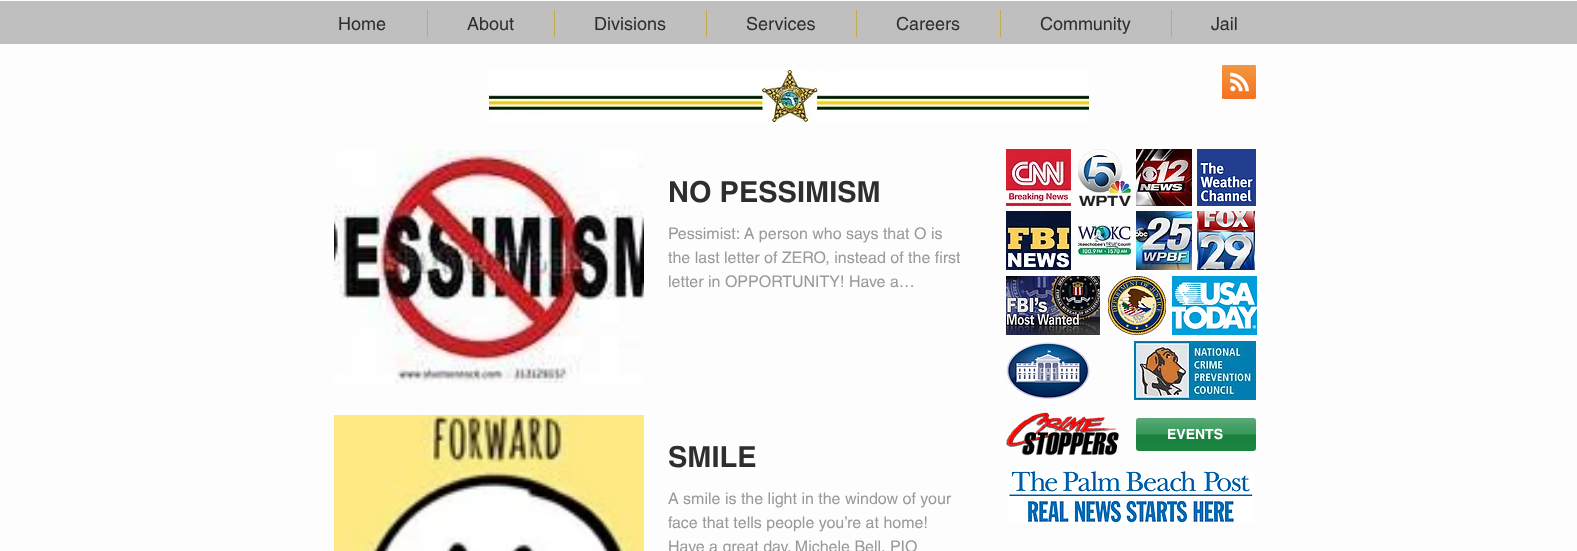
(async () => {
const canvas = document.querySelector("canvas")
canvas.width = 1577
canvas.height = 551
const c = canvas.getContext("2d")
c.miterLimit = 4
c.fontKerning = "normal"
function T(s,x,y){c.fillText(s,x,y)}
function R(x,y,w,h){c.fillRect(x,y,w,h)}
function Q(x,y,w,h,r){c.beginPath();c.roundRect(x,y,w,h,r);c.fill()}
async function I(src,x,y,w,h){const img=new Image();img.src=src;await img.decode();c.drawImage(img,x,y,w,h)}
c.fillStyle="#fefdfd"
R(0,0,1577,551)
c.fillStyle="#bfbfbf"
R(0,1,1577,43)
c.font="18px helvetica"
c.fillStyle="#2e2e2e"
T("Home",338,30)
c.fillStyle="#bfad4e"
R(427,10,1,27)
c.fillStyle="#2e2e2e"
T("About",467,30)
c.fillStyle="#bfad4e"
R(554,10,1,27)
c.fillStyle="#2e2e2e"
T("Divisions",594,30)
c.fillStyle="#bfad4e"
R(706,10,1,27)
c.fillStyle="#2e2e2e"
T("Services",746,30)
c.fillStyle="#bfad4e"
R(856,10,1,27)
c.fillStyle="#2e2e2e"
T("Careers",896,30)
c.fillStyle="#bfad4e"
R(1000,10,1,27)
c.fillStyle="#2e2e2e"
T("Community",1040,30)
c.fillStyle="#bfad4e"
R(1171,10,1,27)
c.fillStyle="#2e2e2e"
T("Jail",1211,30)
await I("1.png",489,70,600,52)
await I("2.png",1222,65,34,34)
await I("3.png",334,150,310,233)
c.font="bold 29px helvetica"
T("NO PESSIMISM",668,202)
c.font="16px helvetica"
c.fillStyle="#999"
T("Pessimist: A person who says that O is",668,239)
T("the last letter of ZERO, instead of the first",668,263)
T("letter in OPPORTUNITY! Have a…",668,287)
await I("4.png",334,415,310,136)
c.font="bold 29px helvetica"
c.fillStyle="#2e2e2e"
T("SMILE",668,467)
c.font="16px helvetica"
c.fillStyle="#999"
T("A smile is the light in the window of your",668,504)
T("face that tells people you’re at home!",668,528)
T("Have a great day. Michele Bell, PIO",668,552)
await I("5.png",1006,149,65,57)
await I("6.png",1078,149,53,57)
await I("7.png",1136,149,56,57)
await I("8.png",1197,149,59,57)
await I("9.png",1006,211,65,59)
await I("10.png",1078,223,53,36)
await I("11.png",1136,211,56,59)
await I("12.png",1197,211,58,59)
await I("13.png",1006,276,94,59)
await I("14.png",1108,276,58,59)
await I("15.png",1172,276,85,59)
await I("16.png",1006,342,84,57)
await I("17.png",1134,341,122,59)
await I("18.png",1006,412,113,44)
c.fillStyle="#1c8a43"
Q(1136,418,120,33,3)
await I("19.png",1136,418,120,33)
c.font="bold 14px helvetica"
c.fillStyle="#fff"
T("EVENTS",1167,439)
await I("20.png",1009,471,244,52)
})()
